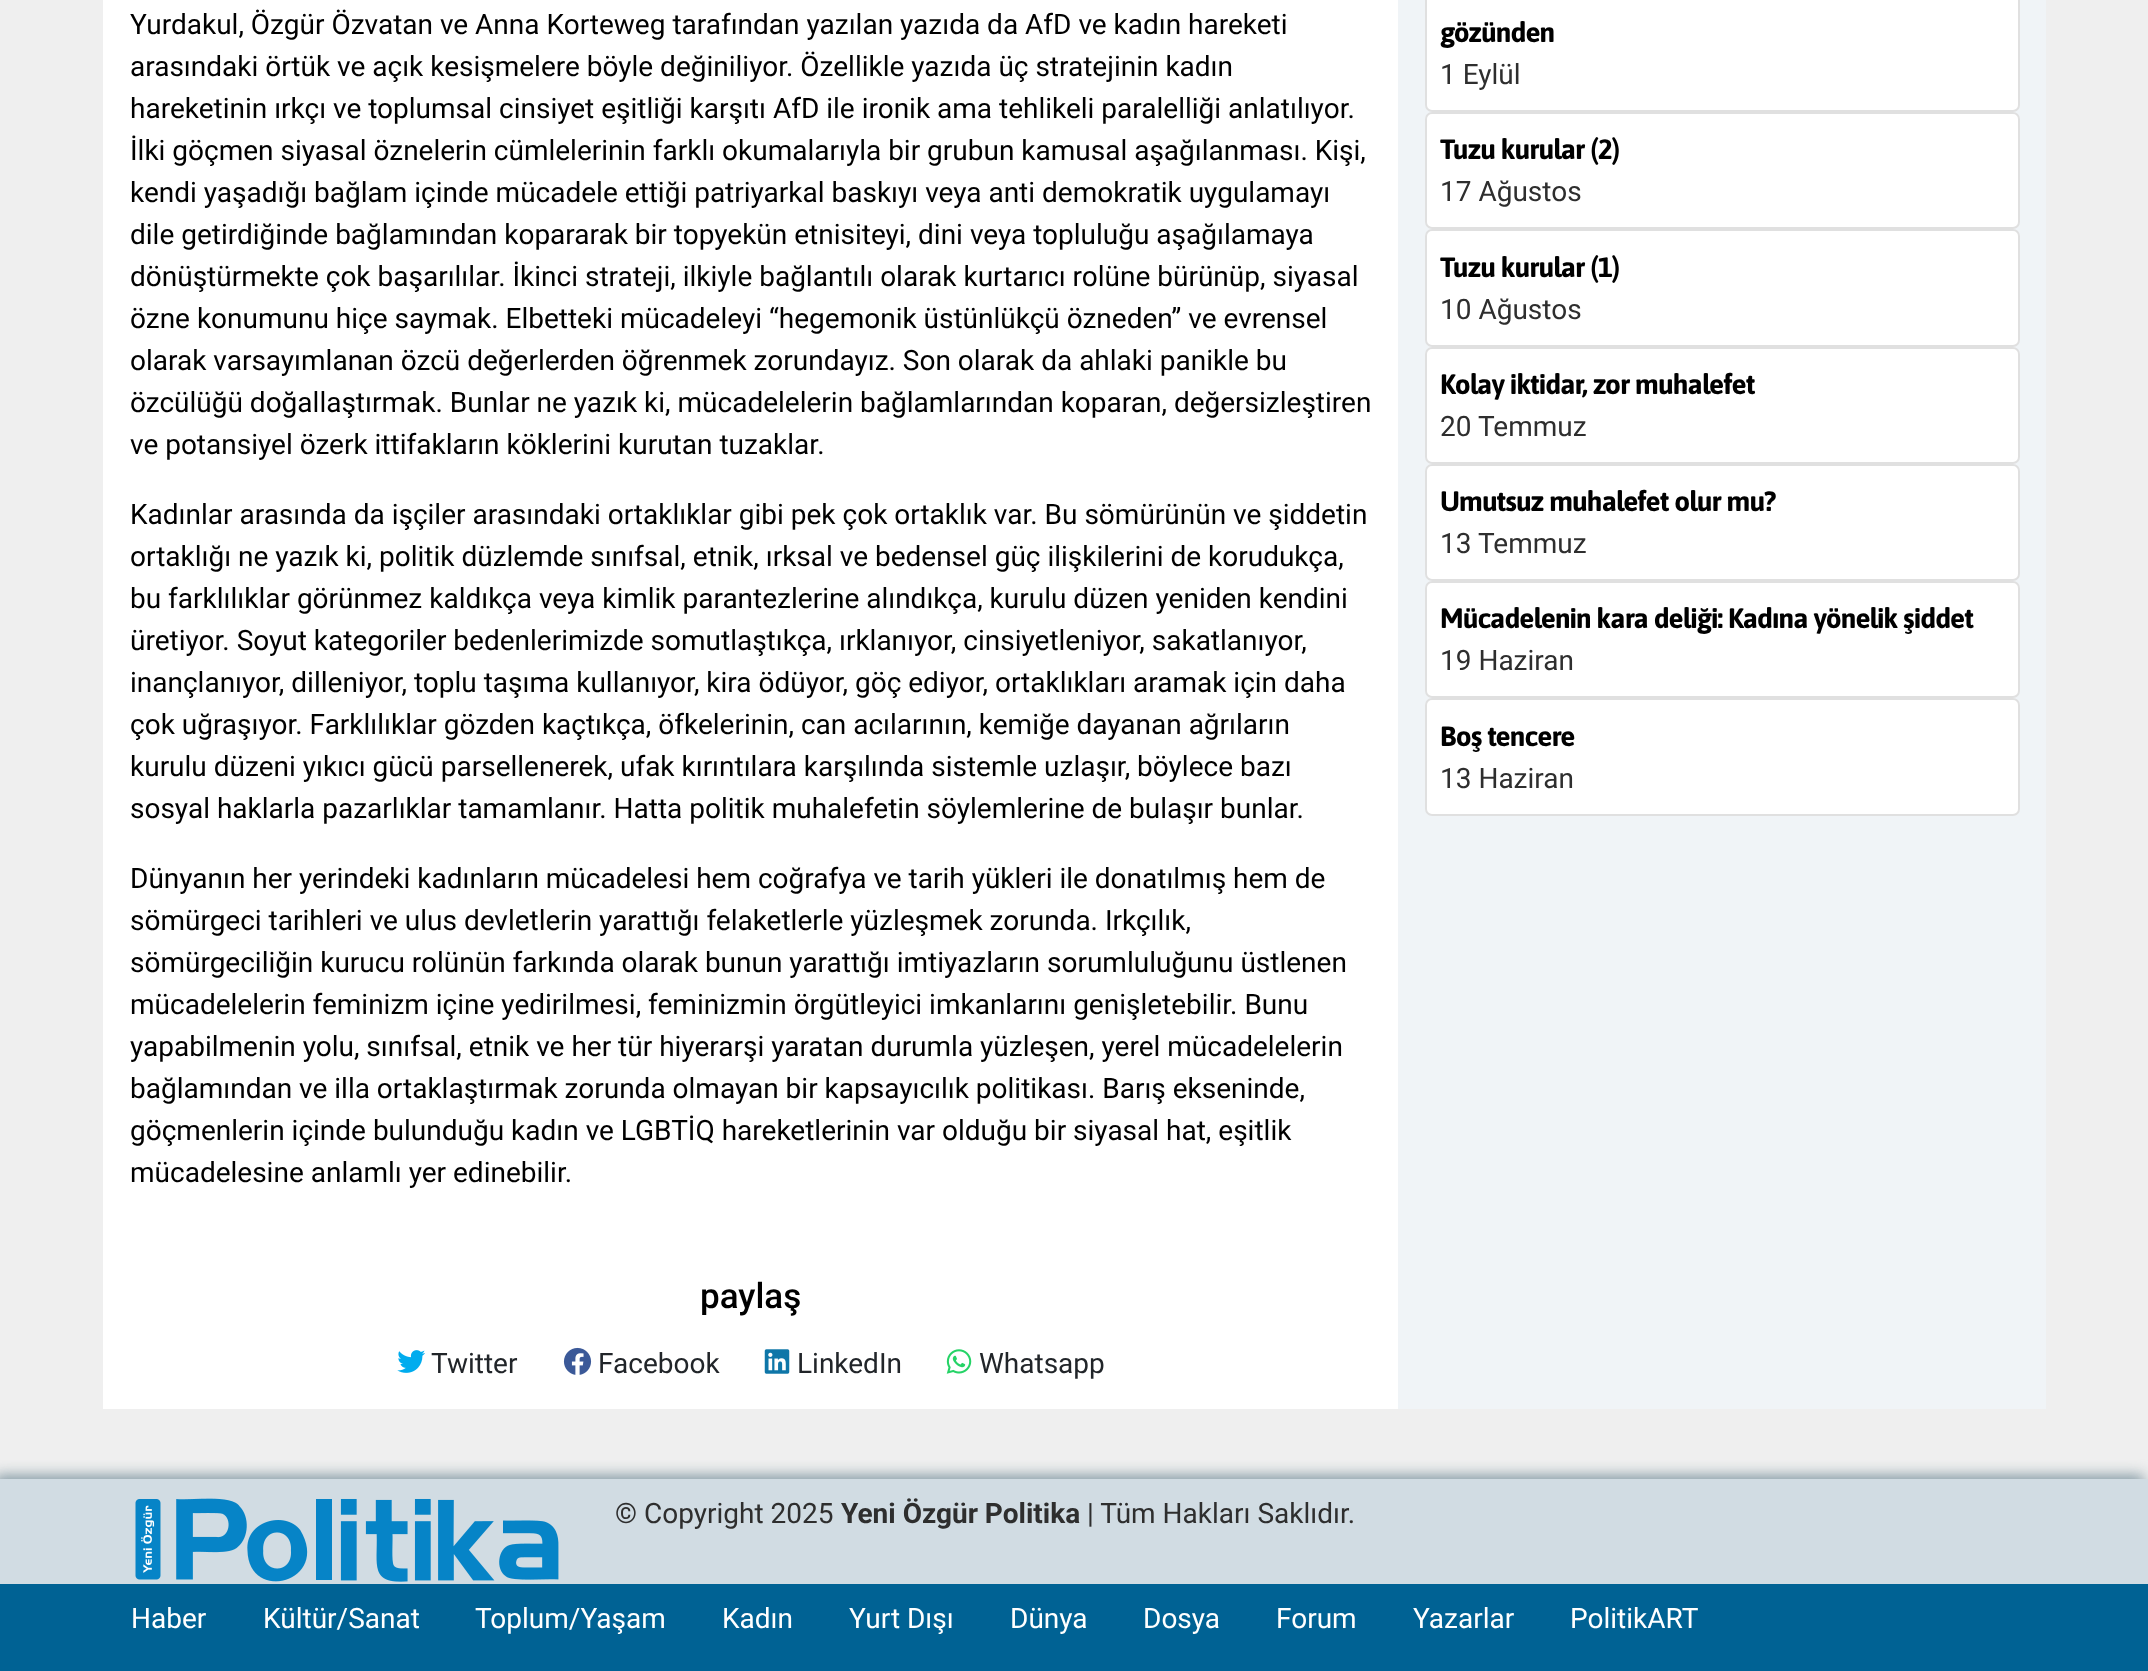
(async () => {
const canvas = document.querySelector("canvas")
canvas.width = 2148
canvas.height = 1671
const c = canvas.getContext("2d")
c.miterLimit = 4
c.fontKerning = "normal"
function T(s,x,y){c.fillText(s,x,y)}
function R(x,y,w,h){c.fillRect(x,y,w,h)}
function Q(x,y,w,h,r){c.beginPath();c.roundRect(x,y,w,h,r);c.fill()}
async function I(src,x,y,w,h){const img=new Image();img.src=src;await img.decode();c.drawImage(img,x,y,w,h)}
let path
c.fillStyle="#efefef"
R(0,0,2148,1671)
c.fillStyle="#fff"
R(103,0,1295,1409)
c.font="28px Roboto"
c.fillStyle="#000"
T("Yurdakul, Özgür Özvatan ve Anna Korteweg tarafından yazılan yazıda da AfD ve kadın hareketi",130,34)
T("arasındaki örtük ve açık kesişmelere böyle değiniliyor. Özellikle yazıda üç stratejinin kadın",130,76)
T("hareketinin ırkçı ve toplumsal cinsiyet eşitliği karşıtı AfD ile ironik ama tehlikeli paralelliği anlatılıyor.",130,118)
T("İlki göçmen siyasal öznelerin cümlelerinin farklı okumalarıyla bir grubun kamusal aşağılanması. Kişi,",130,160)
T("kendi yaşadığı bağlam içinde mücadele ettiği patriyarkal baskıyı veya anti demokratik uygulamayı",130,202)
T("dile getirdiğinde bağlamından kopararak bir topyekün etnisiteyi, dini veya topluluğu aşağılamaya",130,244)
T("dönüştürmekte çok başarılılar. İkinci strateji, ilkiyle bağlantılı olarak kurtarıcı rolüne bürünüp, siyasal",130,286)
T("özne konumunu hiçe saymak. Elbetteki mücadeleyi “hegemonik üstünlükçü özneden” ve evrensel",130,328)
T("olarak varsayımlanan özcü değerlerden öğrenmek zorundayız. Son olarak da ahlaki panikle bu",130,370)
T("özcülüğü doğallaştırmak. Bunlar ne yazık ki, mücadelelerin bağlamlarından koparan, değersizleştiren",130,412)
T("ve potansiyel özerk ittifakların köklerini kurutan tuzaklar.",130,454)
T("Kadınlar arasında da işçiler arasındaki ortaklıklar gibi pek çok ortaklık var. Bu sömürünün ve şiddetin",130,524)
T("ortaklığı ne yazık ki, politik düzlemde sınıfsal, etnik, ırksal ve bedensel güç ilişkilerini de korudukça,",130,566)
T("bu farklılıklar görünmez kaldıkça veya kimlik parantezlerine alındıkça, kurulu düzen yeniden kendini",130,608)
T("üretiyor. Soyut kategoriler bedenlerimizde somutlaştıkça, ırklanıyor, cinsiyetleniyor, sakatlanıyor,",130,650)
T("inançlanıyor, dilleniyor, toplu taşıma kullanıyor, kira ödüyor, göç ediyor, ortaklıkları aramak için daha",130,692)
T("çok uğraşıyor. Farklılıklar gözden kaçtıkça, öfkelerinin, can acılarının, kemiğe dayanan ağrıların",130,734)
T("kurulu düzeni yıkıcı gücü parsellenerek, ufak kırıntılara karşılında sistemle uzlaşır, böylece bazı",130,776)
T("sosyal haklarla pazarlıklar tamamlanır. Hatta politik muhalefetin söylemlerine de bulaşır bunlar.",130,818)
T("Dünyanın her yerindeki kadınların mücadelesi hem coğrafya ve tarih yükleri ile donatılmış hem de",130,888)
T("sömürgeci tarihleri ve ulus devletlerin yarattığı felaketlerle yüzleşmek zorunda. Irkçılık,",130,930)
T("sömürgeciliğin kurucu rolünün farkında olarak bunun yarattığı imtiyazların sorumluluğunu üstlenen",130,972)
T("mücadelelerin feminizm içine yedirilmesi, feminizmin örgütleyici imkanlarını genişletebilir. Bunu",130,1014)
T("yapabilmenin yolu, sınıfsal, etnik ve her tür hiyerarşi yaratan durumla yüzleşen, yerel mücadelelerin",130,1056)
T("bağlamından ve illa ortaklaştırmak zorunda olmayan bir kapsayıcılık politikası. Barış ekseninde,",130,1098)
T("göçmenlerin içinde bulunduğu kadın ve LGBTİQ hareketlerinin var olduğu bir siyasal hat, eşitlik",130,1140)
T("mücadelesine anlamlı yer edinebilir.",130,1182)
c.font="500 35px Roboto"
T("paylaş",700,1308)
await I("1.png",397,1350,28,23)
c.font="28px Roboto"
c.fillStyle="#212529"
T("Twitter",431,1373)
await I("2.png",563,1347,29,28)
T("Facebook",598,1373)
await I("3.png",764,1349,26,25)
T("LinkedIn",797,1373)
await I("4.png",946,1349,26,25)
T("Whatsapp",979,1373)
c.fillStyle="#f0f4f7"
path = new Path2D("M1486-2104h560v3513h-648v-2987c0-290 39-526 88-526z")
c.fill(path)
c.fillStyle="#fff"
Q(1425,-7,595,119,7)
c.beginPath()
c.roundRect(1426,-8,593,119,6)
c.strokeStyle="#0000001f"
c.lineWidth=2
c.stroke()
c.letterSpacing="-0.9px"
c.font="bold 28px Asap"
c.fillStyle="#000"
T("gözünden",1440,42)
c.letterSpacing="0px"
c.font="28px Roboto"
c.fillStyle="#2e2e2e"
T("1 Eylül",1440,84)
c.fillStyle="#fff"
Q(1425,112,595,117,7)
c.beginPath()
c.roundRect(1426,113,593,115,6)
c.stroke()
c.letterSpacing="-0.9px"
c.font="bold 28px Asap"
c.fillStyle="#000"
T("Tuzu kurular (2)",1440,159)
c.letterSpacing="0px"
c.font="28px Roboto"
c.fillStyle="#2e2e2e"
T("17 Ağustos",1440,201)
c.fillStyle="#fff"
Q(1425,229,595,118,7)
c.beginPath()
c.roundRect(1426,230,593,116,6)
c.stroke()
c.letterSpacing="-0.9px"
c.font="bold 28px Asap"
c.fillStyle="#000"
T("Tuzu kurular (1)",1440,277)
c.letterSpacing="0px"
c.font="28px Roboto"
c.fillStyle="#2e2e2e"
T("10 Ağustos",1440,319)
c.fillStyle="#fff"
Q(1425,347,595,117,7)
c.beginPath()
c.roundRect(1426,348,593,115,6)
c.stroke()
c.letterSpacing="-0.9px"
c.font="bold 28px Asap"
c.fillStyle="#000"
T("Kolay iktidar, zor muhalefet",1440,394)
c.letterSpacing="0px"
c.font="28px Roboto"
c.fillStyle="#2e2e2e"
T("20",1440,436)
T("Temmuz",1478,436)
c.fillStyle="#fff"
Q(1425,464,595,117,7)
c.beginPath()
c.roundRect(1426,465,593,115,6)
c.stroke()
c.letterSpacing="-0.9px"
c.font="bold 28px Asap"
c.fillStyle="#000"
T("Umutsuz muhalefet olur mu?",1440,511)
c.letterSpacing="0px"
c.font="28px Roboto"
c.fillStyle="#2e2e2e"
T("13",1440,553)
T("Temmuz",1478,553)
c.fillStyle="#fff"
Q(1425,581,595,117,7)
c.beginPath()
c.roundRect(1426,582,593,115,6)
c.stroke()
c.letterSpacing="-0.9px"
c.font="bold 28px Asap"
c.fillStyle="#000"
T("Mücadelenin kara deliği: Kadına yönelik şiddet",1440,628)
c.letterSpacing="0px"
c.font="28px Roboto"
c.fillStyle="#2e2e2e"
T("19 Haziran",1440,670)
c.fillStyle="#fff"
Q(1425,698,595,118,7)
c.beginPath()
c.roundRect(1426,699,593,116,6)
c.stroke()
c.letterSpacing="-0.9px"
c.font="bold 28px Asap"
c.fillStyle="#000"
T("Boş tencere",1440,746)
c.letterSpacing="0px"
c.font="28px Roboto"
c.fillStyle="#2e2e2e"
T("13 Haziran",1440,788)
c.fillStyle="#869ca6"
c.filter="blur(7px)"
c.beginPath()
c.rect(-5,1475,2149,105)
c.fill()
c.filter="none"
c.fillStyle="#d1dce3"
R(0,1479,2148,105)
await I("5.png",135,1498,424,84)
c.fillStyle="#2e2e2e"
T("© Copyright 2025",615,1523)
c.font="bold 28px Roboto"
T("Yeni Özgür Politika",841,1523)
c.font="28px Roboto"
T("| Tüm Hakları Saklıdır.",1087,1523)
c.fillStyle="#006294"
R(0,1584,2148,87)
c.fillStyle="#fff"
T("Haber",131,1628)
T("Kültür/Sanat",263,1628)
T("Toplum/Yaşam",475,1628)
T("Kadın",722,1628)
T("Yurt Dışı",849,1628)
T("Dünya",1010,1628)
T("Dosya",1143,1628)
T("Forum",1276,1628)
T("Yazarlar",1413,1628)
T("PolitikART",1570,1628)
})()
